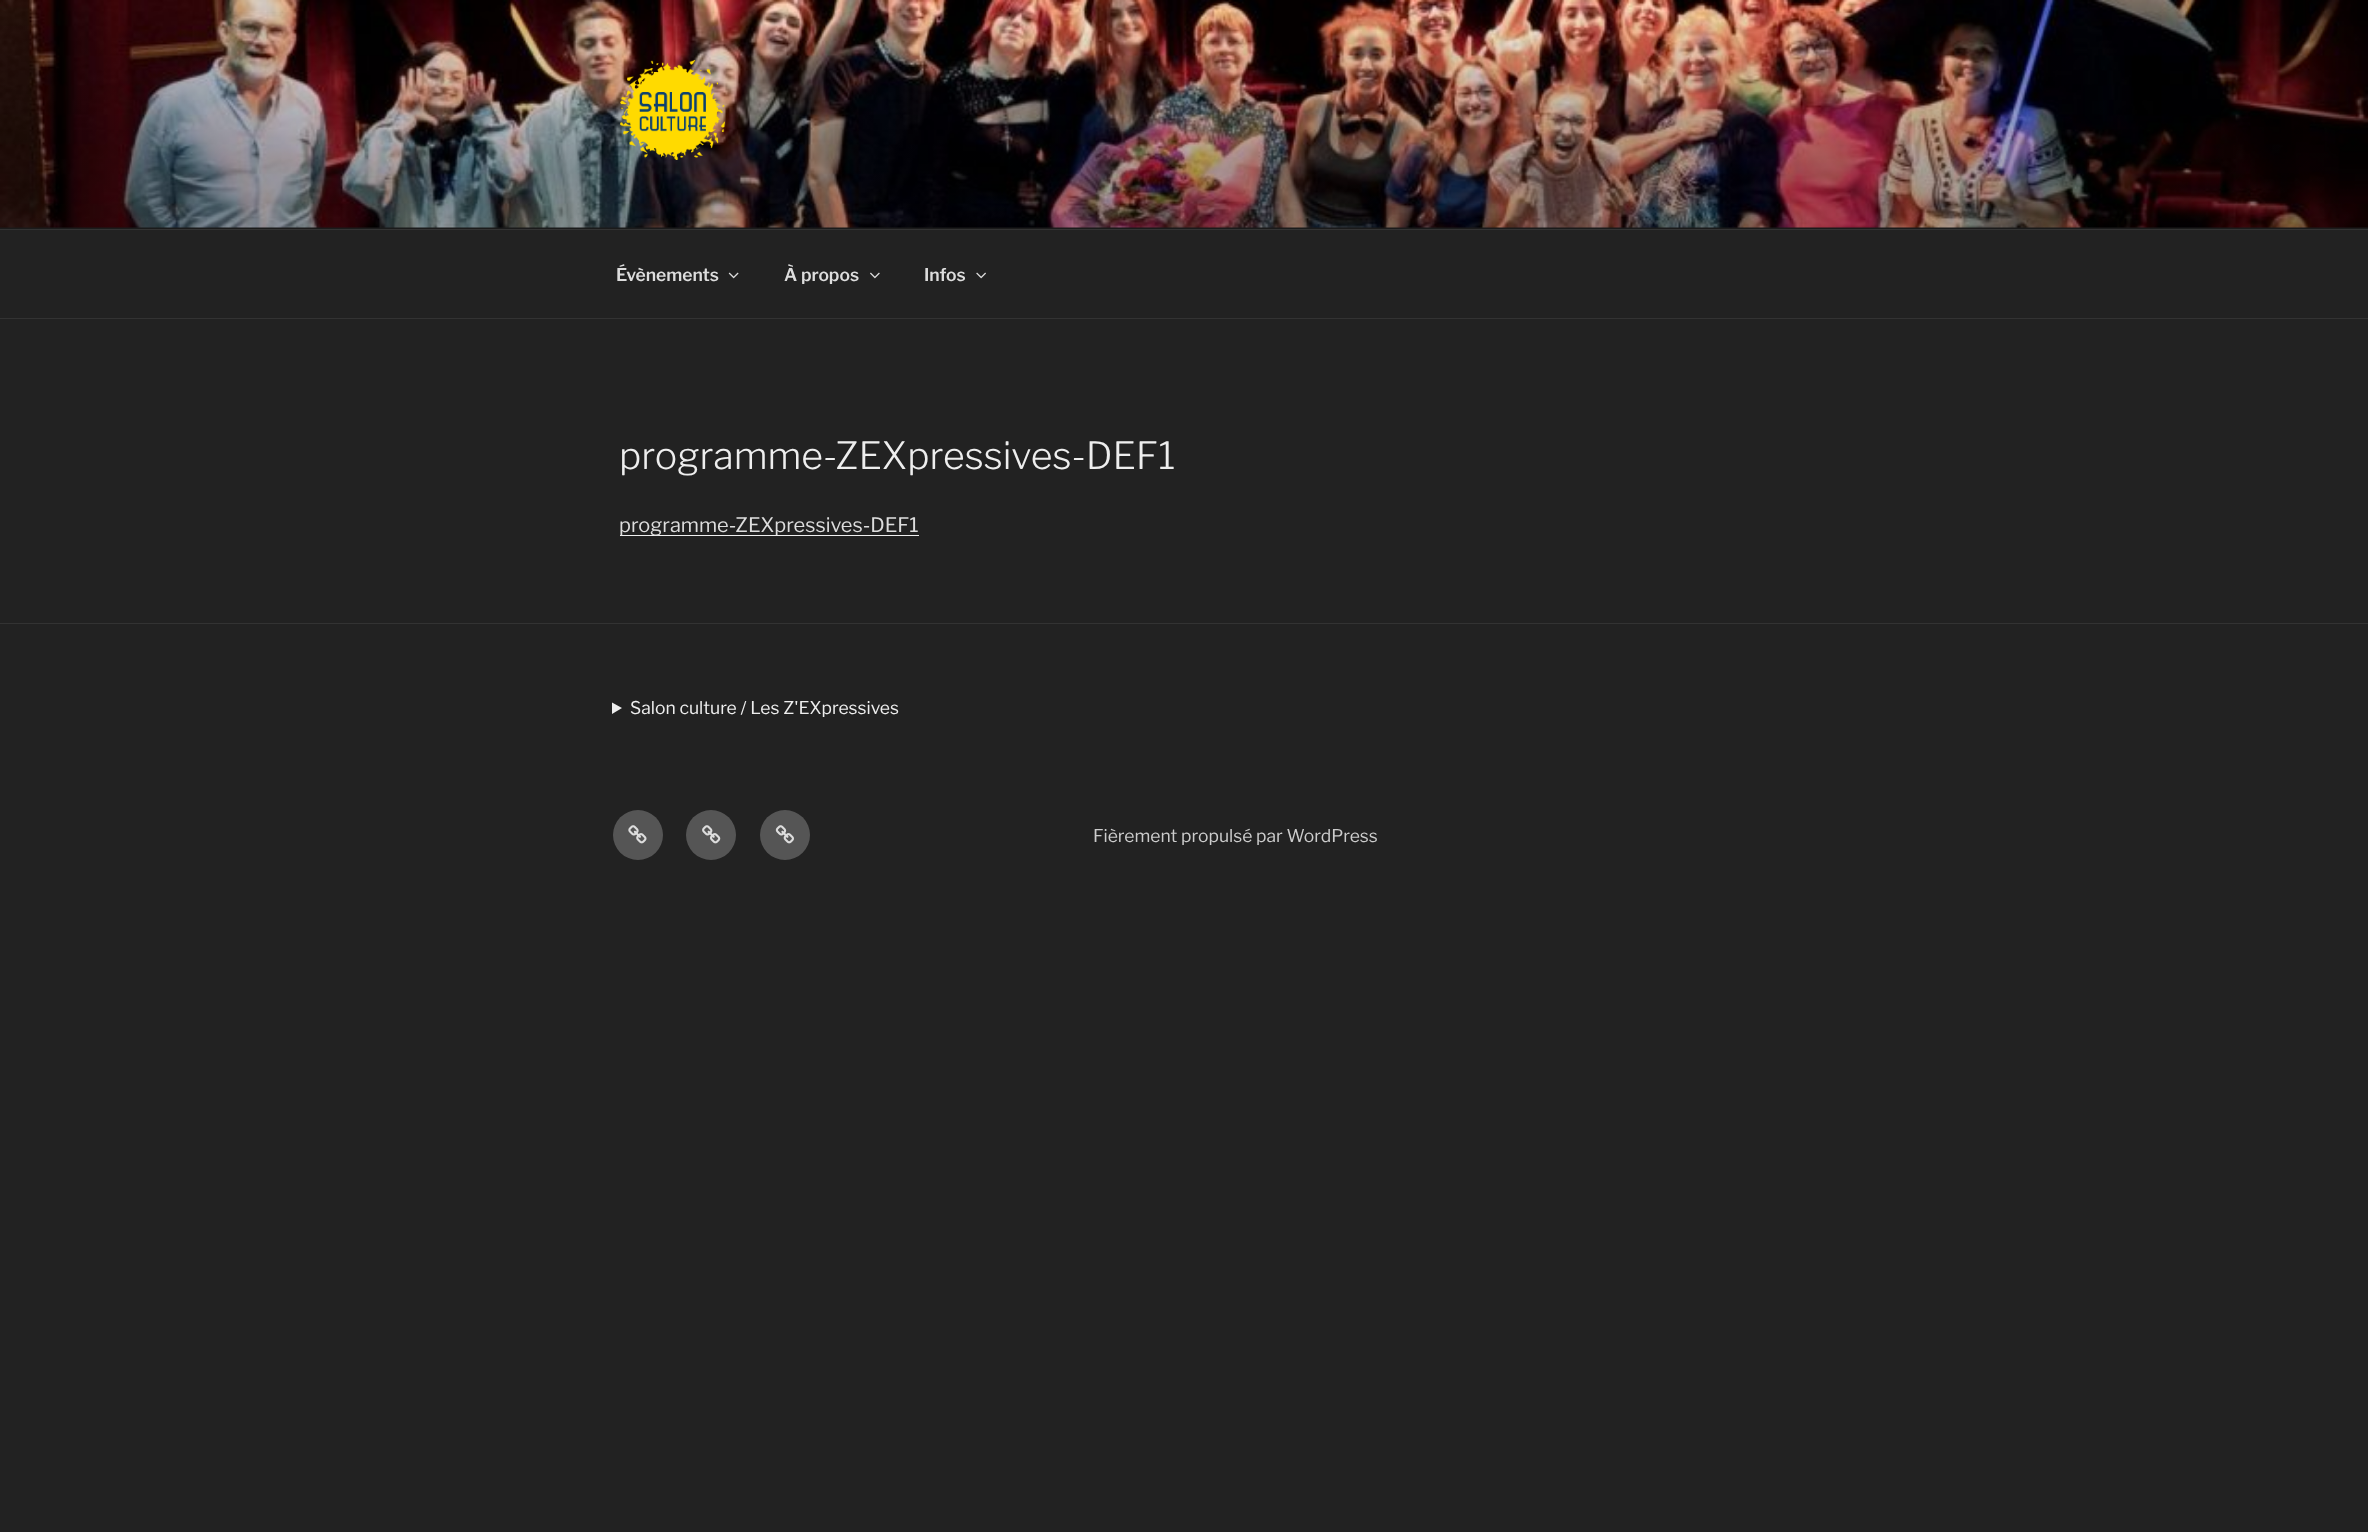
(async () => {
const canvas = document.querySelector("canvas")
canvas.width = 2368
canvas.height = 1532
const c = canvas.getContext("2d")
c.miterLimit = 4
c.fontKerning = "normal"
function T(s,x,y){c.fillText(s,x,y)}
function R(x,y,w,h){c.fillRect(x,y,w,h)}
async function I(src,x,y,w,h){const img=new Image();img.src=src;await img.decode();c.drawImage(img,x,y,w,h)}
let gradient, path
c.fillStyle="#222"
R(0,0,2368,1532)
c.fillStyle="#262626"
R(0,227,2368,2)
await I("1.png",0,0,2368,228)
gradient = c.createLinearGradient(1184,0,1184,229)
gradient.addColorStop(0,"#00000000")
gradient.addColorStop(.75,"#0000004d")
gradient.addColorStop(1,"#0000004d")
c.fillStyle = gradient
R(0,12,2368,217)
await I("2.png",620,60,105,100)
c.fillStyle="#333"
R(0,229,2368,1)
R(0,318,2368,1)
c.font="100 17.5px 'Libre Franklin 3'"
c.fillStyle="#ddd"
T("Évènements",616,281)
await I("3.png",728,272,11,7)
T("À propos",784,281)
await I("4.png",870,272,10,7)
T("Infos",924,281)
await I("5.png",976,272,10,7)
c.font="100 37.5px 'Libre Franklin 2'"
c.fillStyle="#eee"
T("programme-ZEXpressives-DEF1",619,469)
c.fillStyle="#f0f0f0"
R(620,535,299,1)
c.font="100 20px Libre Franklin"
c.fillStyle="#ddd"
T("programme-ZEXpressives-DEF1",619,532)
c.fillStyle="#333"
R(0,623,2368,1)
c.fillStyle="#eee"
path = new Path2D("M612 702.5l10 5.5l-10 6z")
c.fill(path)
c.font="100 17.5px Libre Franklin"
T("Salon culture / Les Z'EXpressives",630,714)
c.fillStyle="#555"
c.beginPath()
c.arc(638,835,25,0,7)
c.fill()
await I("6.png",628,825,19,19)
c.beginPath()
c.arc(711,835,25,0,7)
c.fill()
await I("7.png",702,825,19,19)
c.beginPath()
c.arc(785,835,25,0,7)
c.fill()
await I("8.png",775,825,19,19)
c.fillStyle="#ccc"
T("Fièrement propulsé par WordPress",1093,842)
})()
